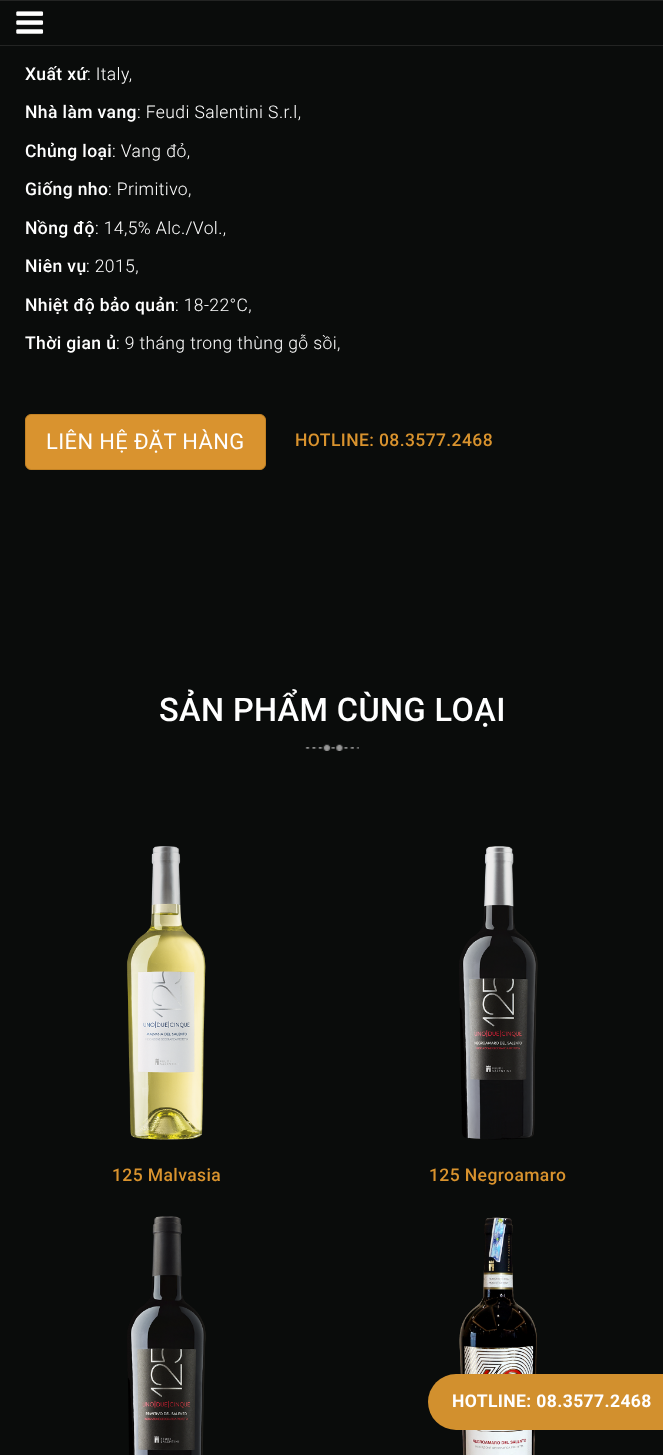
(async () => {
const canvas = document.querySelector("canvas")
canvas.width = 663
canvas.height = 1455
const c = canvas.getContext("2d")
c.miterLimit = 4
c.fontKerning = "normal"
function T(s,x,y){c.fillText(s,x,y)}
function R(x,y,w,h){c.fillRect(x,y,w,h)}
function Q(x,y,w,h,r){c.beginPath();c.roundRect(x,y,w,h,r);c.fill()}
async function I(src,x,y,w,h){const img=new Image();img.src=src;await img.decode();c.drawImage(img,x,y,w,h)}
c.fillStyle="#0a0c0b"
R(0,0,663,1455)
c.fillStyle="#232423"
R(0,0,663,1)
R(0,45,663,1)
await I("1.png",16,11,28,23)
c.letterSpacing="0.4px"
c.font="500 17.5px Roboto"
c.fillStyle="#fff"
T("Xuất xứ",25,80)
c.font="300 17.5px Roboto"
T(": Italy,",87,80)
c.font="500 17.5px Roboto"
T("Nhà làm vang",25,118)
c.font="300 17.5px Roboto"
T(": Feudi Salentini S.r.l,",137,118)
c.font="500 17.5px Roboto"
T("Chủng loại",25,157)
c.font="300 17.5px Roboto"
T(": Vang đỏ,",112,157)
c.font="500 17.5px Roboto"
T("Giống nho",25,195)
c.font="300 17.5px Roboto"
T(": Primitivo,",108,195)
c.font="500 17.5px Roboto"
T("Nồng độ",25,234)
c.font="300 17.5px Roboto"
T(": 14,5% Alc./Vol.,",95,234)
c.font="500 17.5px Roboto"
T("Niên vụ",25,272)
c.font="300 17.5px Roboto"
T(": 2015,",86,272)
c.font="500 17.5px Roboto"
T("Nhiệt độ bảo quản",25,311)
c.font="300 17.5px Roboto"
T(": 18-22°C,",175,311)
c.font="500 17.5px Roboto"
T("Thời gian ủ",25,349)
c.font="300 17.5px Roboto"
T(": 9 tháng trong thùng gỗ sồi,",116,349)
c.fillStyle="#d9932f"
c.beginPath()
c.roundRect(25.5,414.5,240,55,5.5)
c.fill()
c.strokeStyle="#c38224"
c.stroke()
c.font="21.9px Roboto"
c.fillStyle="#fff"
T("LIÊN HỆ ĐẶT HÀNG",46,449)
c.font="500 17.5px Roboto"
c.fillStyle="#d9932e"
T("HOTLINE: 08.3577.2468",295,446)
await I("2.png",305,744,54,7)
c.font="500 32.5px Roboto"
c.fillStyle="#fff"
T("SẢN PHẨM CÙNG LOẠI",159,721)
await I("3.png",126,846,80,294)
c.font="500 17.5px Roboto"
c.fillStyle="#d9932e"
T("125 Malvasia",112,1181)
await I("4.png",459,846,79,294)
T("125 Negroamaro",429,1181)
await I("5.png",127,1216,79,239)
await I("6.png",459,1217,78,238)
c.fillStyle="#d2902e"
Q(428,1374,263,56,28)
c.font="bold 17.5px Roboto"
c.fillStyle="#fff"
T("HOTLINE: 08.3577.2468",452,1407)
})()
